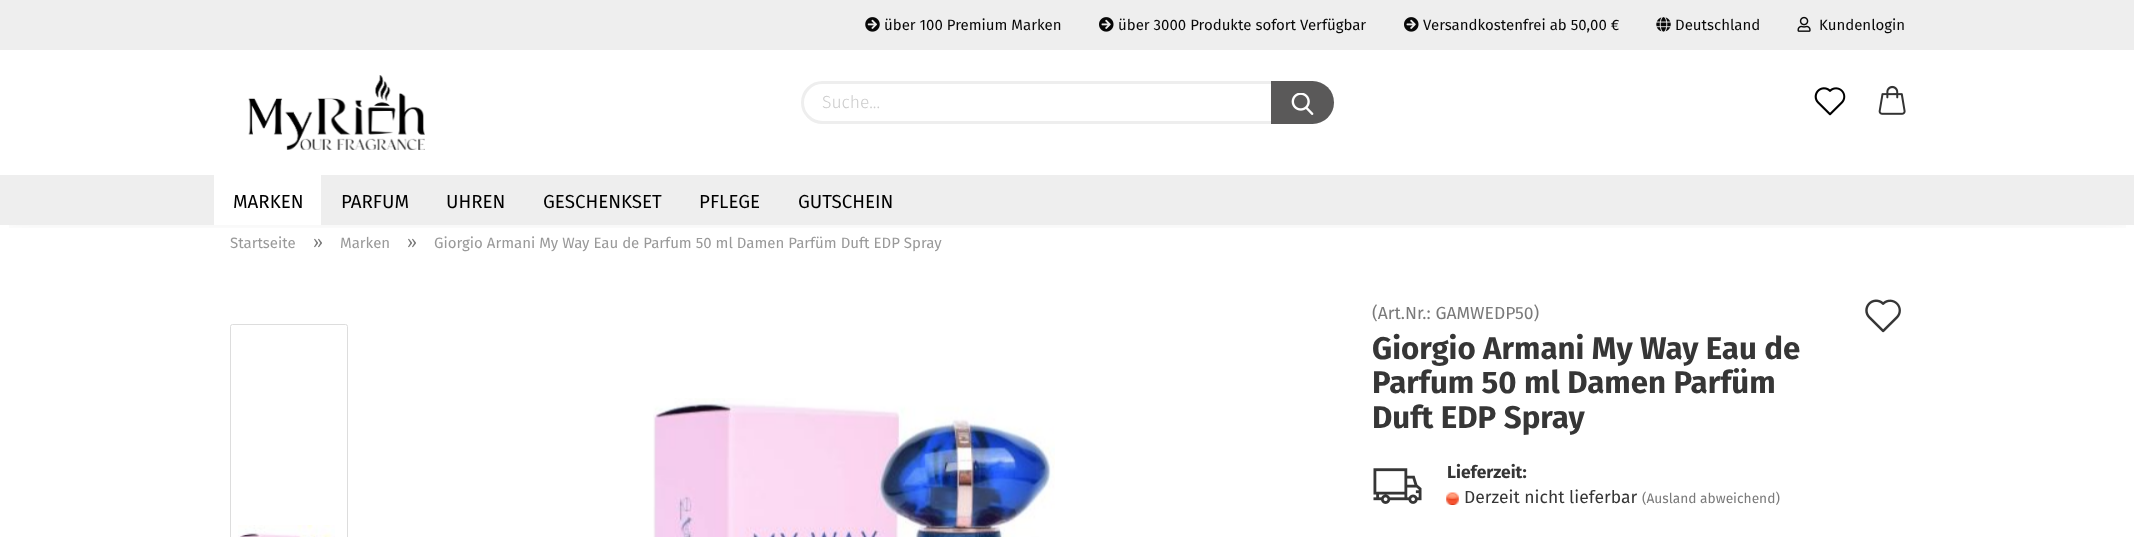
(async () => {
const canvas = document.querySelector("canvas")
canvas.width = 2134
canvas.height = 537
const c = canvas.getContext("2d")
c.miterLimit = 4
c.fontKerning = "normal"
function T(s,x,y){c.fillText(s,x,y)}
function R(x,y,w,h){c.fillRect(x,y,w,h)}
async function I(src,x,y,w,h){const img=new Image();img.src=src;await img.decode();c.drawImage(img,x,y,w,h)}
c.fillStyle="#fff"
R(0,0,2134,537)
c.save()
c.beginPath()
c.rect(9,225,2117,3)
c.clip()
c.fillStyle="#0000004d"
c.filter="blur(15.5px)"
c.beginPath()
c.rect(0,0,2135,205)
c.fill()
c.filter="none"
c.restore()
c.fillStyle="#eee"
R(0,0,2134,50)
await I("1.png",865,17,15,15)
c.font="15px Fira Sans"
c.fillStyle="#080808"
T("über 100 Premium Marken",884,30)
await I("2.png",1099,17,15,15)
T("über 3000 Produkte sofort Verfügbar",1118,30)
await I("2.png",1404,17,15,15)
T("Versandkostenfrei ab 50,00 €",1423,30)
await I("3.png",1656,17,15,15)
T("Deutschland",1675,30)
await I("4.png",1797,16,14,16)
T("Kundenlogin",1819,30)
await I("5.png",248,75,177,75)
c.beginPath()
c.roundRect(802.5,82.5,530,40,20)
c.strokeStyle="#eee"
c.lineWidth=3
c.stroke()
c.font="300 17.5px Fira Sans"
c.fillStyle="#ccc"
T("Suche...",822,108)
c.fillStyle="#5a5959"
c.beginPath()
c.roundRect(1271,81,63,43,[0,21.5,21.5,0])
c.fill()
await I("6.png",1291,93,23,22)
await I("7.png",1814,87,32,29)
await I("8.png",1878,85,28,30)
c.fillStyle="#eee"
R(0,175,2134,50)
c.fillStyle="#fff"
R(214,175,107,50)
c.font="18.75px Fira Sans"
c.fillStyle="#000"
T("MARKEN",233,208)
T("PARFUM",341,208)
T("UHREN",446,208)
T("GESCHENKSET",543,208)
T("PFLEGE",699,208)
T("GUTSCHEIN",798,208)
c.font="15px Fira Sans"
c.fillStyle="#999"
T("Startseite",230,248)
c.font="17.5px Fira Sans"
c.fillStyle="#7a7a7a"
T("»",313,248)
c.font="15px Fira Sans"
c.fillStyle="#999"
T("Marken",340,248)
c.font="17.5px Fira Sans"
c.fillStyle="#7a7a7a"
T("»",407,248)
c.font="15px Fira Sans"
c.fillStyle="#999"
T("Giorgio Armani My Way Eau de Parfum 50 ml Damen Parfüm Duft EDP Spray",434,248)
c.beginPath()
c.roundRect(230.5,324.5,117,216,2)
c.strokeStyle="#ddd"
c.lineWidth=1
c.stroke()
await I("9.png",238,525,97,12)
await I("10.png",653,398,402,139)
c.font="17.5px Fira Sans"
c.fillStyle="#7a7a7a"
T("(Art.Nr.: GAMWEDP50)",1372,319)
await I("11.png",1865,299,36,34)
c.font="bold 31.25px Fira Sans"
c.fillStyle="#363636"
T("Giorgio Armani My Way Eau de",1372,359)
T("Parfum 50 ml Damen Parfüm",1372,393)
T("Duft EDP Spray",1372,428)
await I("12.png",1373,468,49,36)
c.font="bold 17.5px Fira Sans"
T("Lieferzeit:",1447,478)
await I("13.png",1446,492,13,13)
c.font="17.5px Fira Sans"
T("Derzeit nicht lieferbar",1464,503)
c.font="13.75px Fira Sans"
c.fillStyle="#7a7a7a"
T("(Ausland abweichend)",1642,503)
})()
